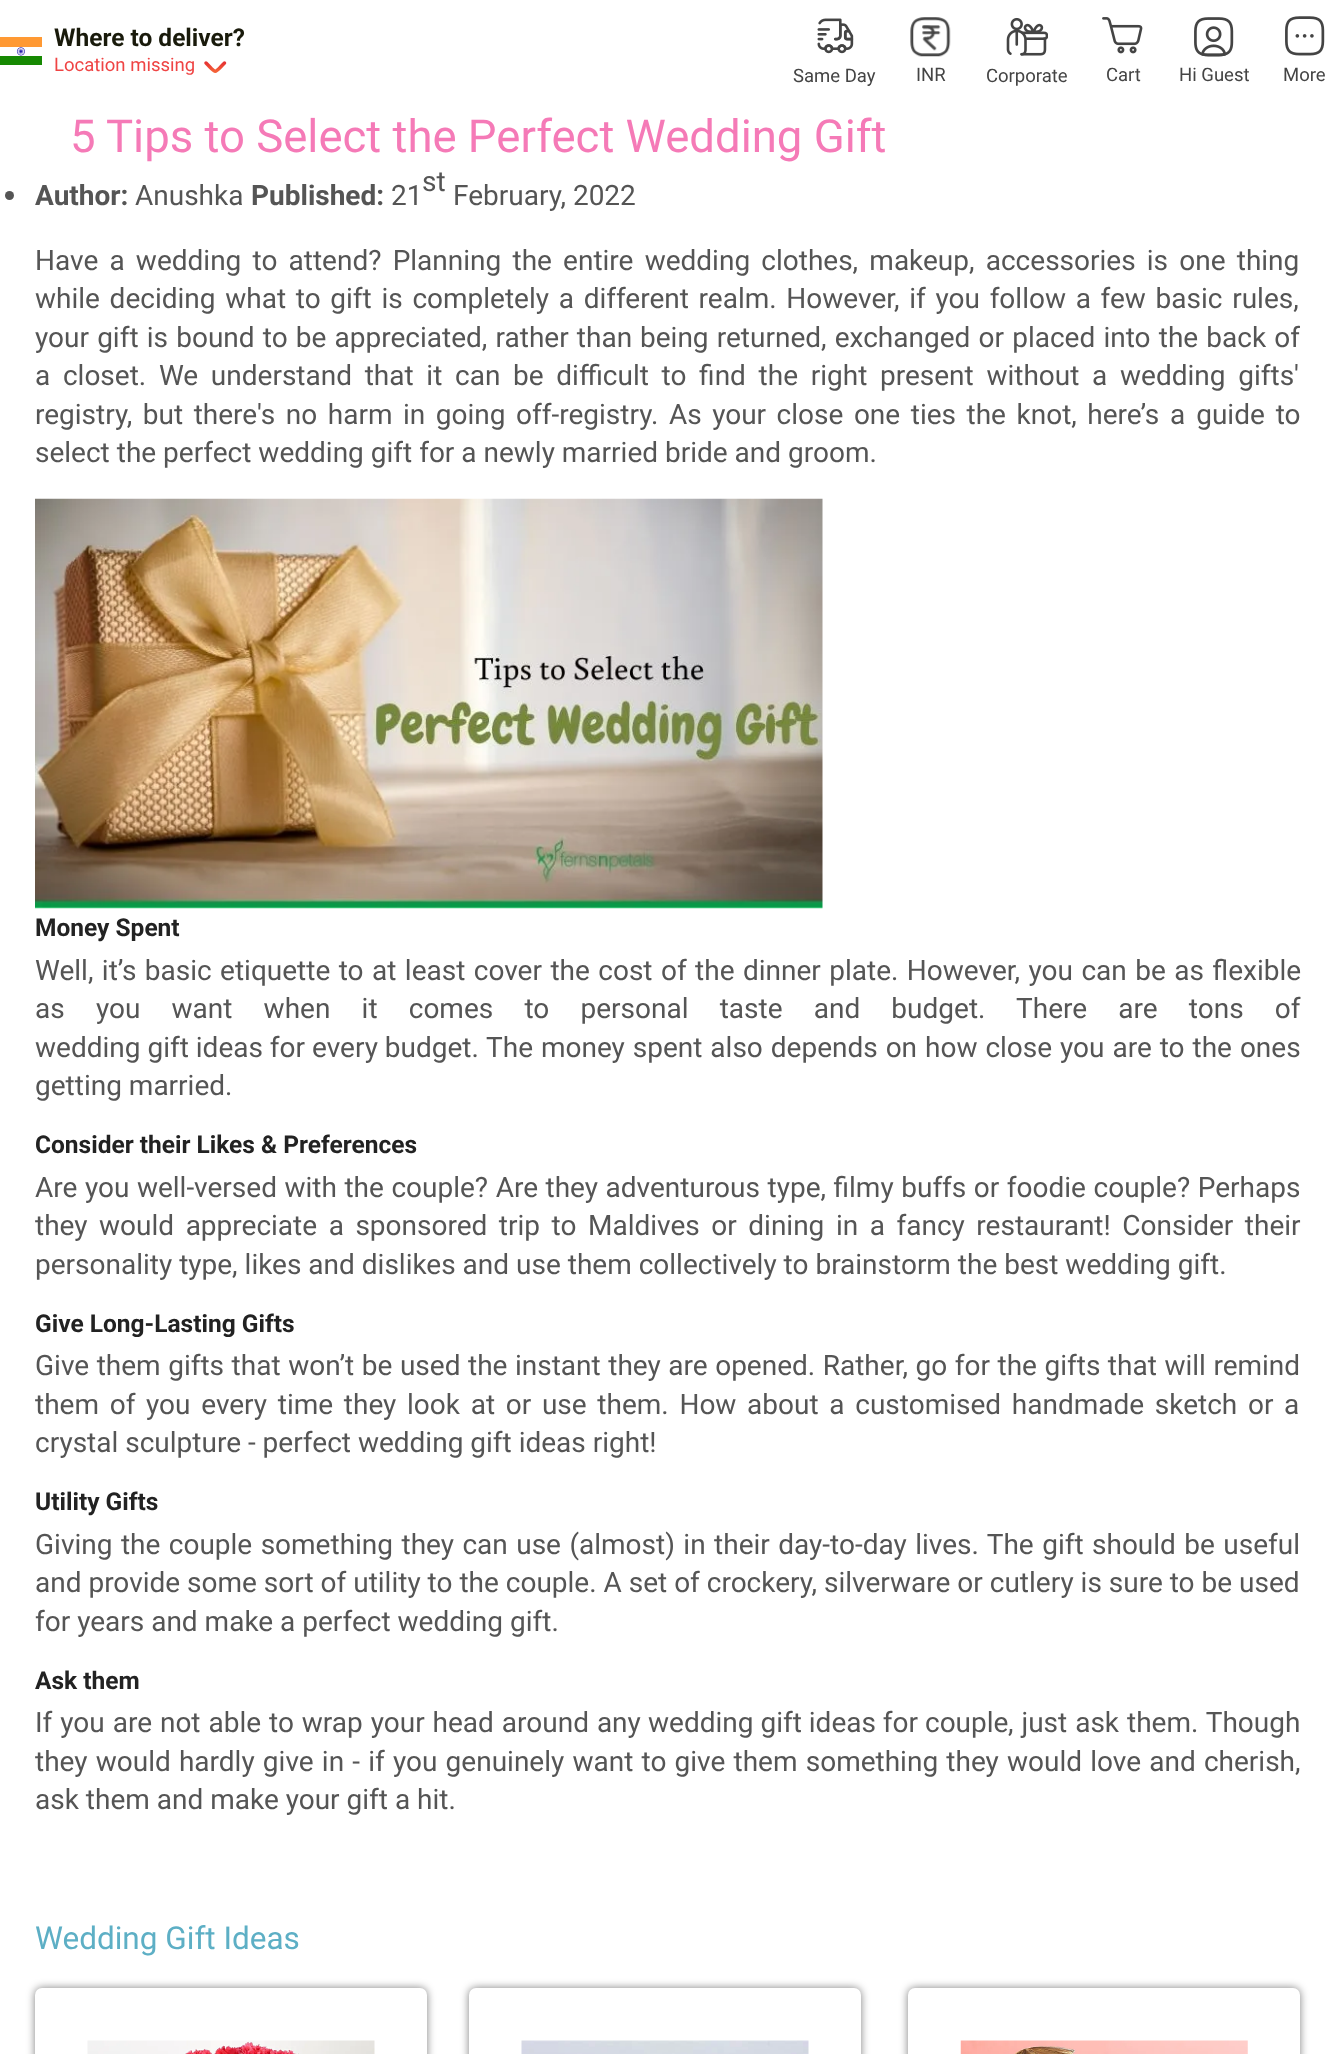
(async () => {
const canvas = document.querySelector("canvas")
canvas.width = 1335
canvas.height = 2054
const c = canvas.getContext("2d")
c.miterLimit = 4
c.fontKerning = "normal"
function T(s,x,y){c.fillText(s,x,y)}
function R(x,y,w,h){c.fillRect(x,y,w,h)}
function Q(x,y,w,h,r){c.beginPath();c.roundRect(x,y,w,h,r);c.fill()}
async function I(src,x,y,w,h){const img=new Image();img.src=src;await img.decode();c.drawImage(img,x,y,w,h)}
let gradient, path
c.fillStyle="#fff"
R(0,0,1335,2054)
await I("1.png",0,37,42,28)
c.font="bold 24.5px Roboto"
c.fillStyle="#191a0b"
T("Where to deliver?",54,46)
c.font="18.5px Roboto"
c.fillStyle="#ef4444"
T("Location missing",54,71)
path = new Path2D("M224.5 63c-11 11-7.5 11-18.5 0")
gradient = c.createLinearGradient(215,63,215,71)
gradient.addColorStop(0,"#e63333")
gradient.addColorStop(1,"#f46137")
c.strokeStyle = gradient
c.lineWidth=3.5
c.lineCap="round"
c.lineJoin="round"
c.stroke(path)
await I("2.png",817,18,37,36)
c.fillStyle="#444"
T("Same Day",793,82)
await I("3.png",910,17,41,40)
T("INR",916,81)
await I("4.png",1006,17,42,39)
T("Corporate",986,82)
await I("5.png",1102,17,41,37)
T("Cart",1106,81)
await I("6.png",1194,17,40,40)
T("Hi Guest",1179,81)
await I("7.png",1285,16,40,40)
T("More",1283,81)
c.font="45.5px Roboto"
c.fillStyle="#f57ab7"
T("5 Tips to Select the Perfect Wedding Gift",70,152)
c.font="28px Roboto"
c.fillStyle="#555"
T("st",422,191)
c.beginPath()
c.arc(9.5,195.5,4.5,0,7)
c.fill()
c.font="bold 28px Roboto"
T("Author:",35,205)
c.font="28px Roboto"
T("Anushka",135,205)
c.font="bold 28px Roboto"
T("Published:",251,205)
c.font="28px Roboto"
T("21",391,205)
T("February, 2022",453,205)
c.wordSpacing="4.25px"
T("Have a wedding to attend? Planning the entire wedding clothes, makeup, accessories is one thing",35,270)
c.wordSpacing="2.75px"
T("while deciding what to gift is completely a different realm. However, if you follow a few basic rules,",35,308)
c.wordSpacing="1.25px"
T("your gift is bound to be appreciated, rather than",35,347)
T("being returned, exchanged or placed into the back of",640,347)
c.wordSpacing="5.75px"
T("a closet. We understand that it can be difficult to find the right present without a wedding gifts'",35,385)
c.wordSpacing="3.6px"
T("registry, but there's no harm in going off-registry. As your close one ties the knot, here’s",35,424)
c.wordSpacing="4px"
T("a guide to",1170,424)
c.wordSpacing="0px"
T("select the perfect wedding gift for a newly married bride and groom.",35,462)
await I("8.png",35,498,788,411)
c.font="bold 24.5px Roboto"
c.fillStyle="#222"
T("Money Spent",35,936)
c.wordSpacing="1.5px"
c.font="28px Roboto"
c.fillStyle="#555"
T("Well, it’s basic etiquette to at least cover the cost of the dinner plate. However, you can be as flexible",35,980)
c.wordSpacing="24.25px"
T("as you want when it comes to personal taste and budget. There are tons of",35,1018)
c.wordSpacing="0px"
T("wedding gift ideas for every budget.",35,1057)
c.wordSpacing="1px"
T("The money spent also depends on how close you are to the ones",486,1057)
c.wordSpacing="0px"
T("getting married.",35,1095)
c.font="bold 24.5px Roboto"
c.fillStyle="#222"
T("Consider their Likes & Preferences",35,1153)
c.wordSpacing="0.6px"
c.font="28px Roboto"
c.fillStyle="#555"
T("Are you well-versed with the couple? Are they adventurous type, filmy buffs or foodie couple? Perhaps",35,1197)
c.wordSpacing="4.6px"
T("they would appreciate a sponsored trip to Maldives or dining in a fancy restaurant! Consider their",35,1235)
c.wordSpacing="0px"
T("personality type, likes and dislikes and use them collectively to brainstorm the best wedding gift.",35,1274)
c.font="bold 24.5px Roboto"
c.fillStyle="#222"
T("Give Long-Lasting Gifts",35,1332)
c.wordSpacing="0.6px"
c.font="28px Roboto"
c.fillStyle="#555"
T("Give them gifts that won’t be used the instant they are opened. Rather, go for the gifts that will remind",35,1375)
c.wordSpacing="3.75px"
T("them of you every time they look at or use them. How about a customised handmade sketch or a",35,1414)
c.wordSpacing="0px"
T("crystal sculpture - perfect wedding gift ideas right!",35,1452)
c.font="bold 24.5px Roboto"
c.fillStyle="#222"
T("Utility Gifts",35,1510)
c.wordSpacing="1.5px"
c.font="28px Roboto"
c.fillStyle="#555"
T("Giving the couple something they can use (almost) in their day-to-day lives. The gift should be useful",35,1554)
c.wordSpacing="0px"
T("and provide some sort of utility to the couple. A set of crockery, silverware or cutlery is sure to be used",35,1592)
T("for years and make a perfect wedding gift.",35,1631)
c.font="bold 24.5px Roboto"
c.fillStyle="#222"
T("Ask them",35,1689)
c.wordSpacing="1px"
c.font="28px Roboto"
c.fillStyle="#555"
T("If you are not able to wrap your head around any",35,1732)
c.wordSpacing="0px"
T("wedding gift ideas for couple",648,1732)
c.wordSpacing="1px"
T(", just ask them. Though",1008,1732)
c.wordSpacing="1.25px"
T("they would hardly give in - if you genuinely want to give them something they would love and cherish,",35,1771)
c.wordSpacing="0px"
T("ask them and make your gift a hit.",35,1809)
c.font="31.5px Roboto"
c.fillStyle="#5dafc5"
T("Wedding Gift Ideas",35,1949)
c.fillStyle="#00000080"
c.filter="blur(4.5px)"
c.beginPath()
c.roundRect(35,1988,392,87,7)
c.fill()
c.filter="none"
c.fillStyle="#fff"
Q(35,1988,392,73,7)
await I("9.png",87,2040,288,14)
c.fillStyle="#00000080"
c.filter="blur(4.5px)"
c.beginPath()
c.roundRect(469,1988,392,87,7)
c.fill()
c.filter="none"
c.fillStyle="#fff"
Q(469,1988,392,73,7)
await I("10.png",521,2040,288,14)
c.fillStyle="#00000080"
c.filter="blur(4.5px)"
c.beginPath()
c.roundRect(908,1988,392,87,7)
c.fill()
c.filter="none"
c.fillStyle="#fff"
Q(908,1988,392,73,7)
await I("11.png",960,2040,288,14)
})()
